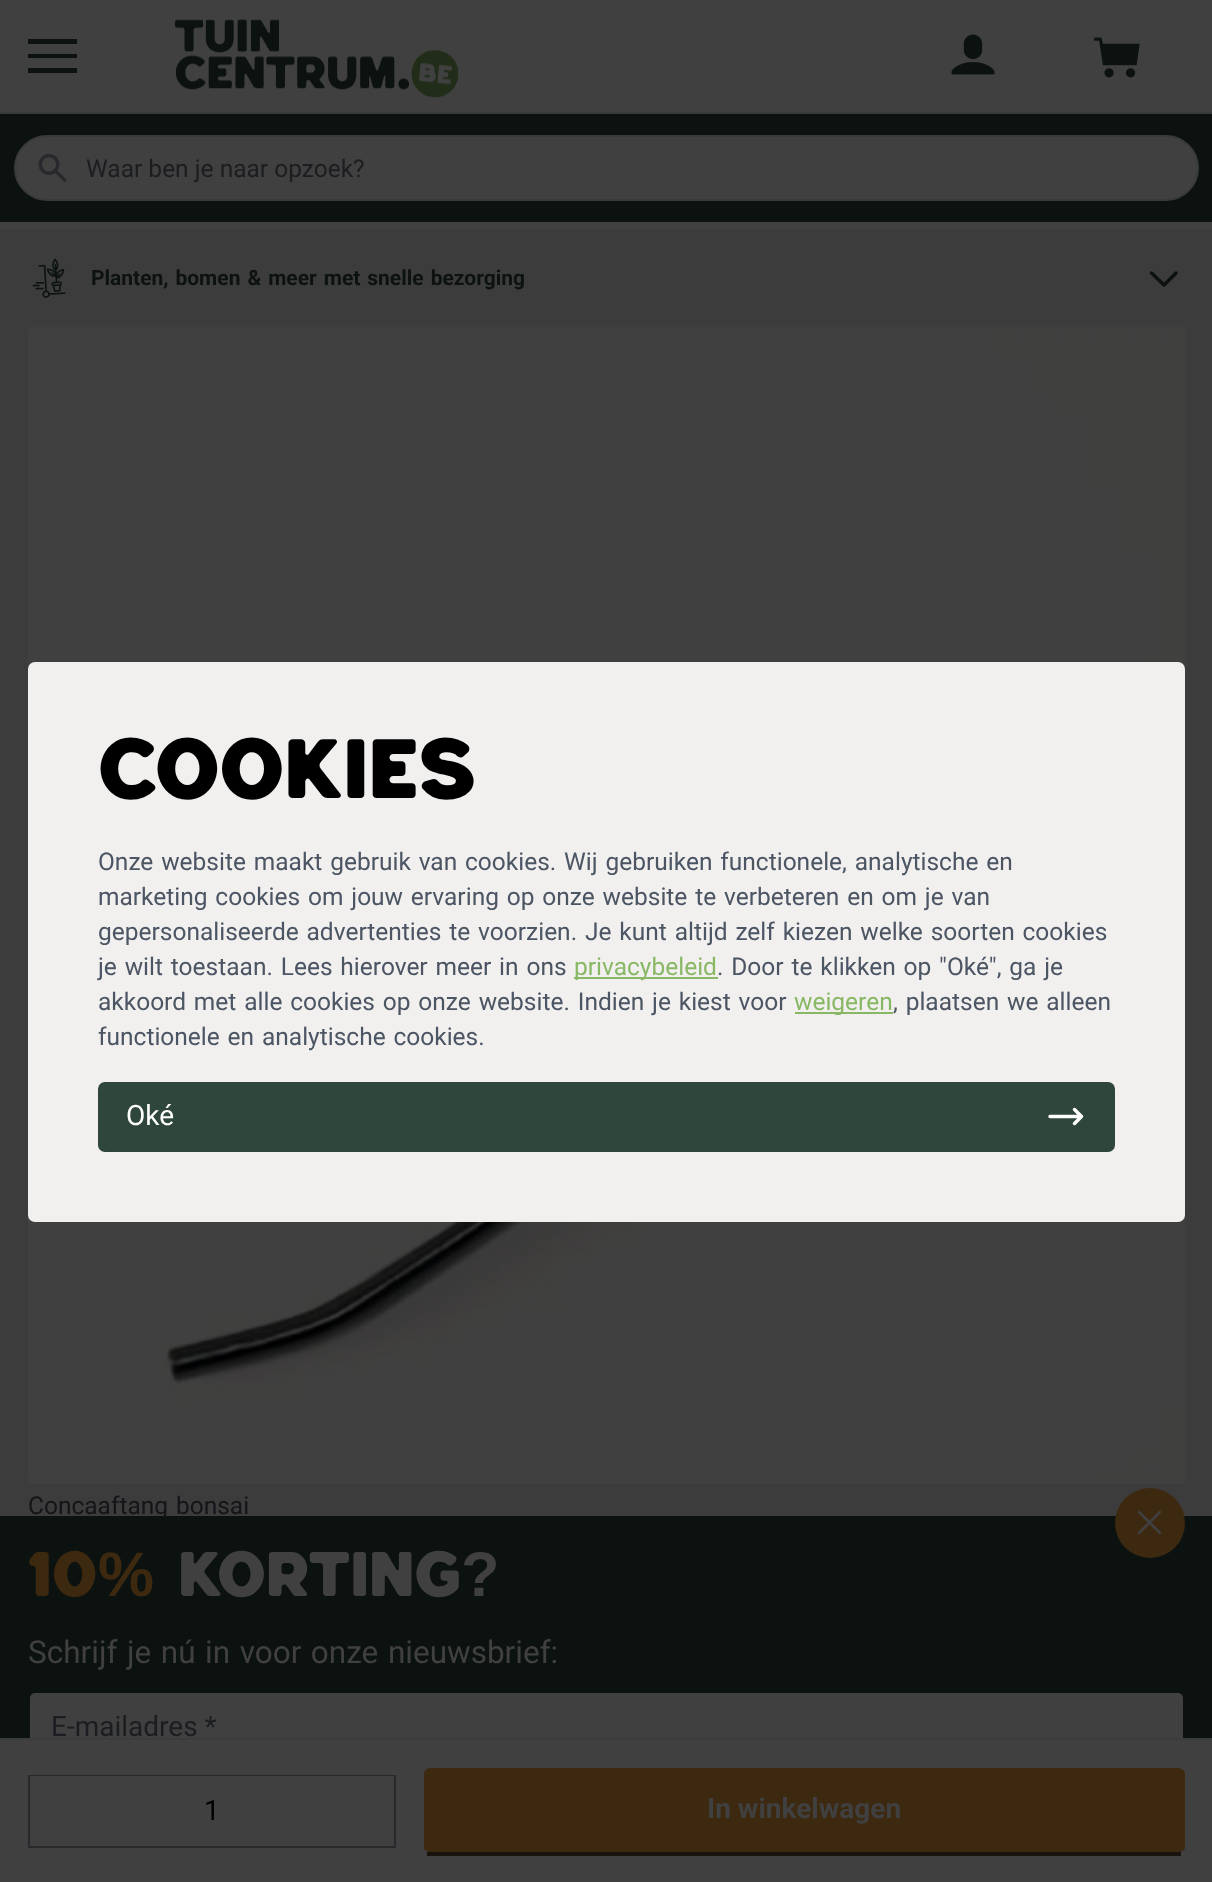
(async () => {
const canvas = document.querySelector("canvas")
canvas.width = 1212
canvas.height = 1882
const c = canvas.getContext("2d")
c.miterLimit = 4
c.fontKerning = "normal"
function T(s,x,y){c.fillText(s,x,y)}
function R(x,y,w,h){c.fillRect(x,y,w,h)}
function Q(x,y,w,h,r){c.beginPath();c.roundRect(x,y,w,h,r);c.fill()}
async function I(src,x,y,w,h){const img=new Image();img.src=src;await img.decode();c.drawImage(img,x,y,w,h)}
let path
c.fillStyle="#404040"
R(0,0,1212,1882)
c.fillStyle="#393a3b"
R(0,112,1212,2)
c.fillStyle="#0c120f"
path = new Path2D("M28 39h49v5h-49zm0 15h49v4h-49zm0 14h49v5h-49z")
c.fill(path)
await I("1.png",175,19,284,79)
await I("2.png",951,34,44,41)
await I("3.png",1094,37,46,41)
R(0,114,1212,108)
c.fillStyle="#404040"
c.beginPath()
c.roundRect(15,136,1183,64,32)
c.fill()
c.strokeStyle="#393a3b"
c.lineWidth=2
c.stroke()
await I("4.png",38,154,29,28)
c.font="24.5px Roboto"
c.fillStyle="#1b1d20"
T("Waar ben je naar opzoek?",86,177)
c.fillStyle="#3d3c3c"
R(0,229,1212,1287)
c.fillStyle="#3e3f3f"
R(28,327,1157,1157)
await I("6.png",28,328,1157,1156)
c.fillStyle="#f2f0ef"
Q(28,662,1157,560,7)
c.font="bold 84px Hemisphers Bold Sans"
c.fillStyle="#000"
T("Cookies",98,798)
c.wordSpacing="1.75px"
c.font="24.5px Roboto"
c.fillStyle="#4b5563"
T("Onze website maakt gebruik van cookies. Wij gebruiken functionele, analytische en",98,870)
T("marketing cookies om jouw ervaring op onze website te verbeteren en om je van",98,905)
T("gepersonaliseerde advertenties te voorzien.",98,940)
T("Je kunt altijd zelf kiezen welke soorten cookies",585,940)
T("je wilt toestaan. Lees hierover meer in ons",98,975)
c.fillStyle="#89b865"
R(574,977,144,2)
c.wordSpacing="0px"
T("privacybeleid",574,975)
c.wordSpacing="1.75px"
c.fillStyle="#4b5563"
T(". Door te klikken op \"Oké\", ga je",717,975)
T("akkoord met alle cookies op onze website. Indien je kiest voor",98,1010)
c.fillStyle="#89b865"
R(795,1012,98,2)
c.wordSpacing="0px"
T("weigeren",794,1010)
c.wordSpacing="1.75px"
c.fillStyle="#4b5563"
T(", plaatsen we alleen",893,1010)
T("functionele en analytische cookies.",98,1045)
c.fillStyle="#2e463b"
Q(98,1082,1017,70,7)
c.wordSpacing="0px"
c.font="28px Roboto"
c.fillStyle="#fff"
T("Oké",126,1125)
path = new Path2D("M1074.5 1109.5l7 7m0 0l-7 7m7-7h-31.5")
c.strokeStyle="#fff"
c.lineWidth=3.5
c.lineCap="round"
c.lineJoin="round"
c.stroke(path)
await I("5.png",32,258,34,40)
c.wordSpacing="1.75px"
c.font="bold 21px Roboto"
c.fillStyle="#0c120f"
T("Planten, bomen & meer met snelle bezorging",91,285)
path = new Path2D("M1176 273l-12 12l-12.5-12")
c.strokeStyle="#0c120f"
c.stroke(path)
c.font="24.5px Roboto"
c.fillStyle="#131519"
T("Concaaftang bonsai",28,1514)
c.fillStyle="#0c120f"
R(0,1516,1212,222)
c.fillStyle="#404040"
c.beginPath()
c.roundRect(29,1692,1155,71,6)
c.fill()
c.lineWidth=2
c.lineJoin="miter"
c.stroke()
R(28,1740,1157,24)
c.fillStyle="#3d3c3c"
R(0,1738,1212,2)
c.strokeStyle="#27292c"
c.strokeRect(29,1776,366,71)
c.fillStyle="#404040"
R(30,1776,364,1)
c.wordSpacing="0px"
c.font="28px Roboto"
c.fillStyle="#000"
T("1",204,1820)
c.fillStyle="#3d2810"
path = new Path2D("M430 1768h748c4 0 7 3 7 6v74c0 2-3 4-7 4h-748c-3 0-6-2-6-4v-74c0-3 3-6 6-6z")
c.fill(path)
c.fillStyle="#18130e"
R(427,1852,754,4)
c.font="bold 28px Roboto"
c.fillStyle="#404040"
T("In winkelwagen",707,1818)
c.fillStyle="#3d2810"
c.beginPath()
c.arc(1150,1523,35,0,7)
c.fill()
path = new Path2D("M1139 1533l21-21m-21 0l21 21")
c.strokeStyle="#404040"
c.lineWidth=2.6
c.lineJoin="round"
c.stroke(path)
c.font="bold 63px Hemisphers Bold Sans"
T("10",28,1596)
c.font="bold 63px Liberation Sans"
T("%",98,1596)
c.font="bold 63px Hemisphers Bold Sans"
c.fillStyle="#404040"
T("Korting",178,1596)
c.font="bold 63px Liberation Sans"
T("?",461,1596)
c.wordSpacing="1.75px"
c.font="31.5px Roboto"
T("Schrijf je nú in voor onze nieuwsbrief:",28,1663)
c.wordSpacing="0px"
c.font="28px Roboto"
c.fillStyle="#1b1d20"
T("E-mailadres *",51,1736)
})()
